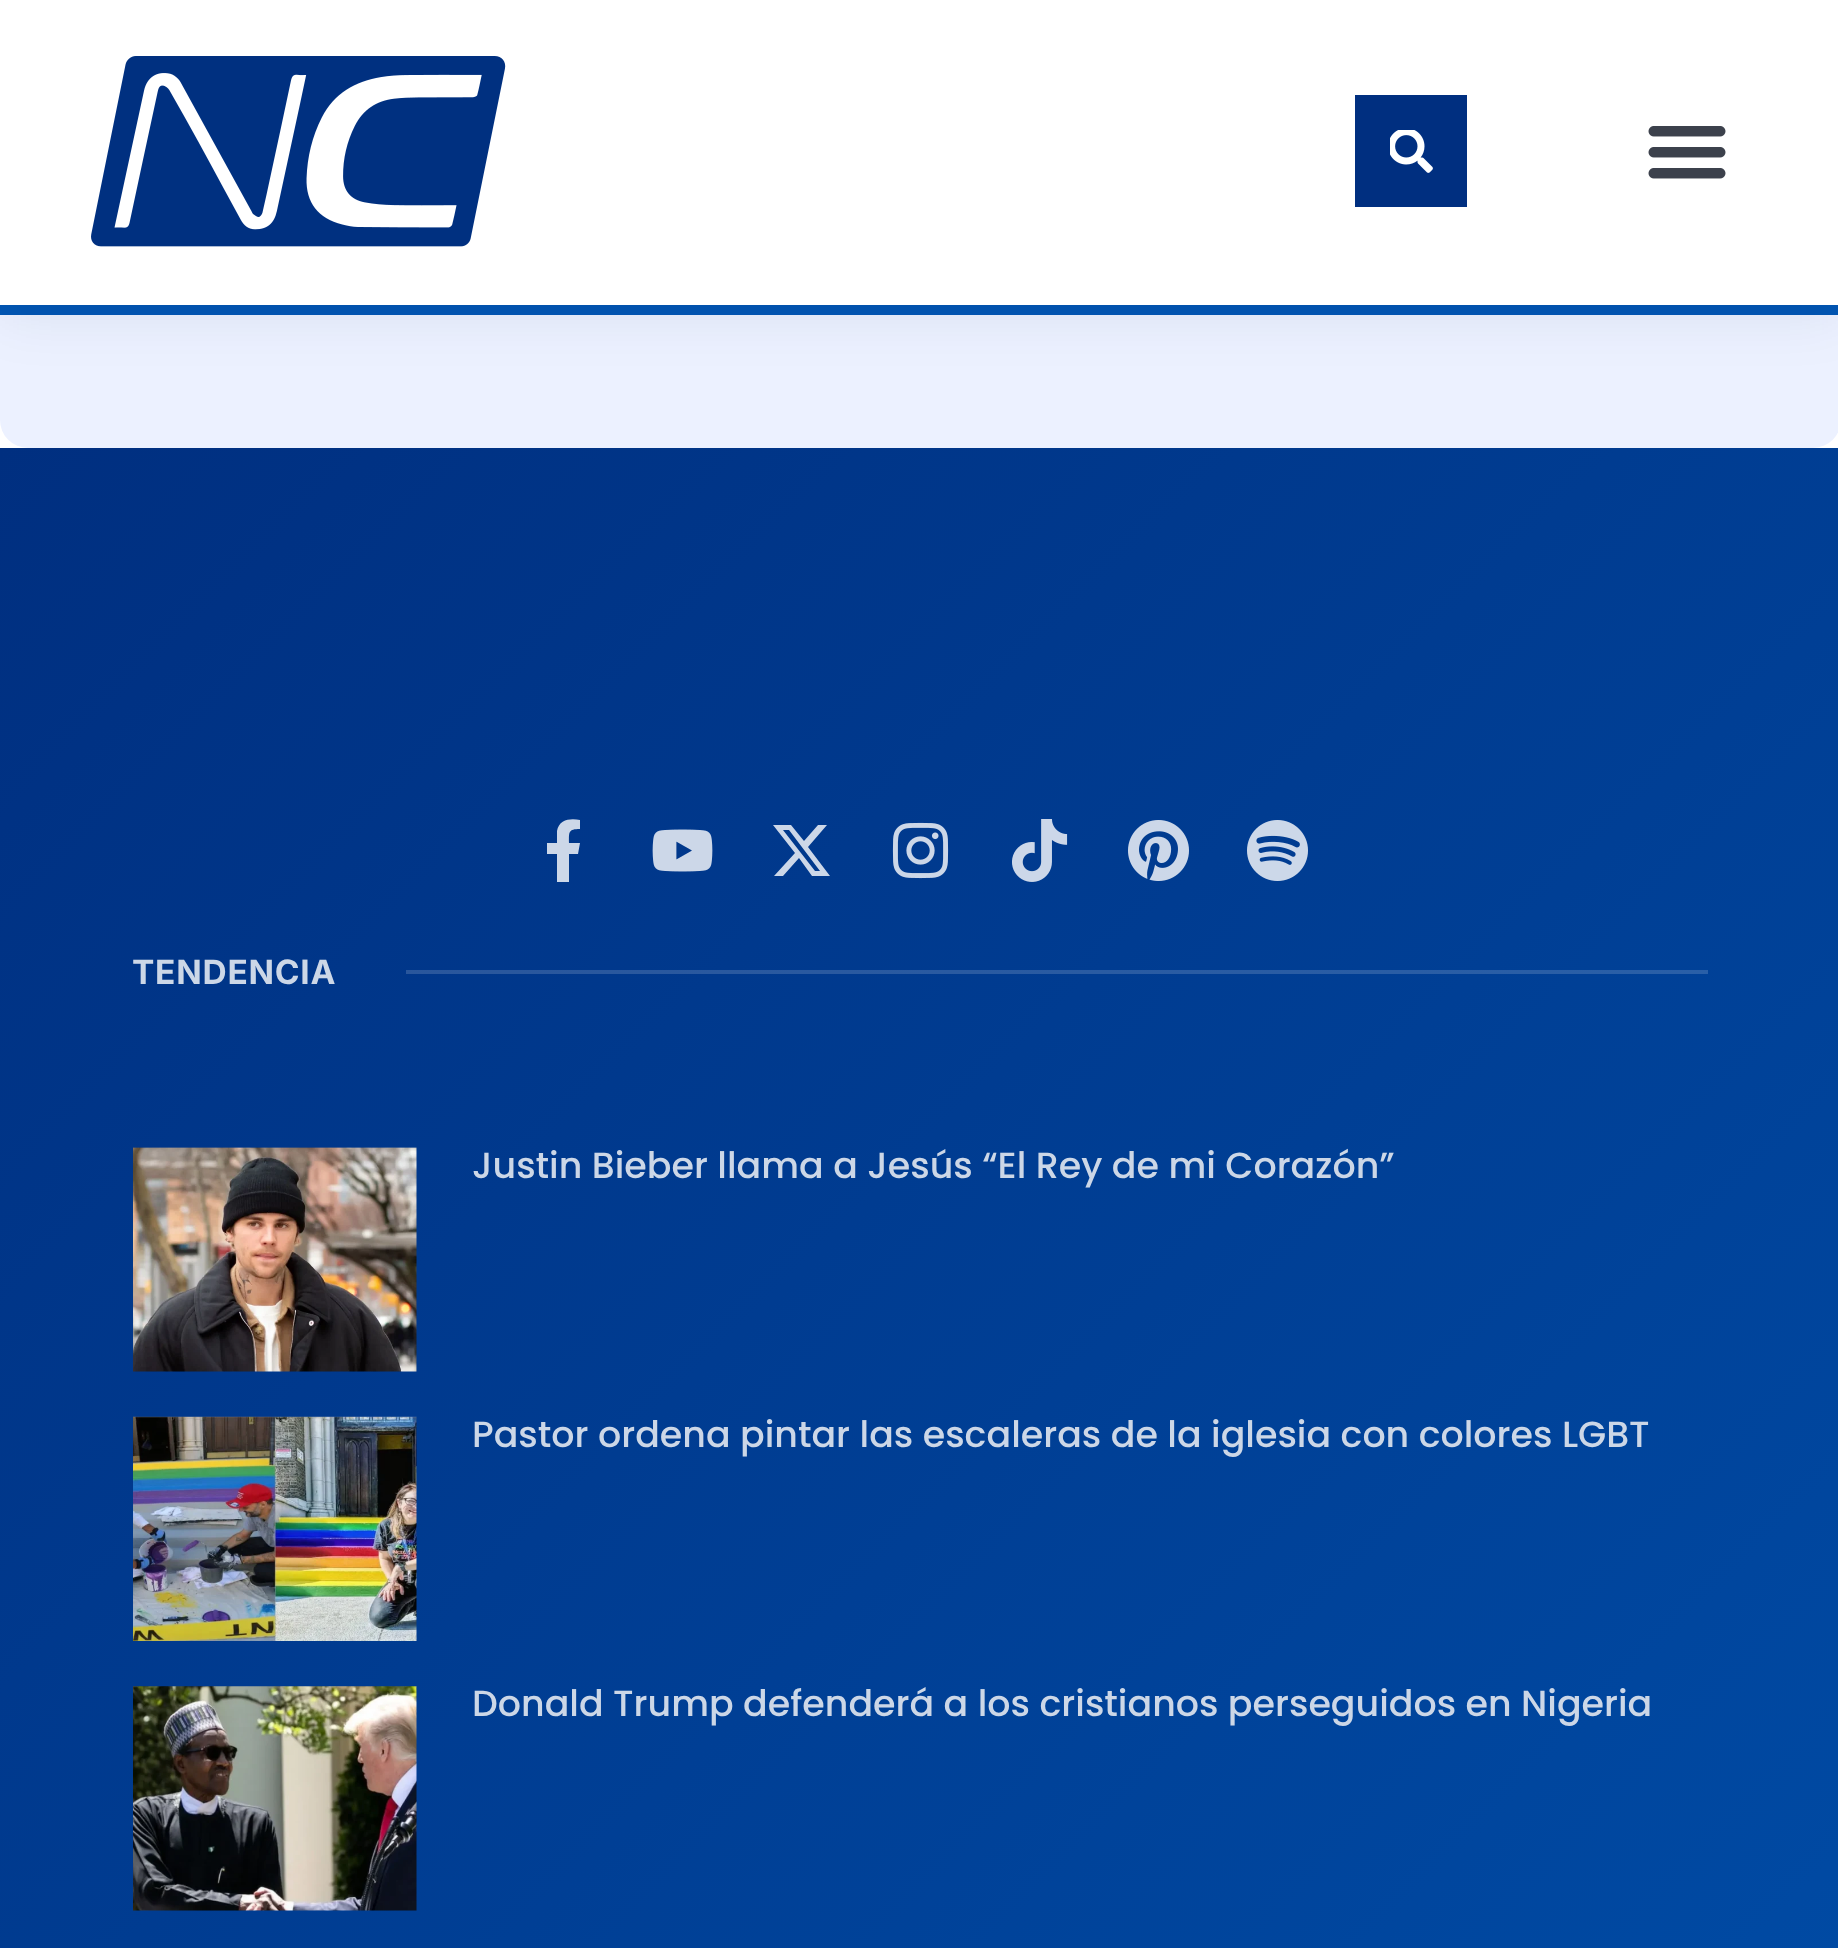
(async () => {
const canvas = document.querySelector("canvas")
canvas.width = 1838
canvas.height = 1948
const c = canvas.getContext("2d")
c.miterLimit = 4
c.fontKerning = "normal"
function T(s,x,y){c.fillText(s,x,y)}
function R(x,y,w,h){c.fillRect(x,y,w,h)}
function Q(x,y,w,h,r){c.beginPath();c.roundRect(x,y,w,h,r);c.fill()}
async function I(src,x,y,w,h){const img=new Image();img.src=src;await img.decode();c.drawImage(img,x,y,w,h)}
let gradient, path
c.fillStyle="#fff"
R(0,0,1838,1948)
c.fillStyle="#ecf1ff"
Q(0,-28,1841,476,28)
c.fillStyle="#0056b3"
R(0,305,1838,10)
c.fillStyle="#0f183f14"
c.filter="blur(28px)"
c.beginPath()
c.rect(0,11,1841,304)
c.fill()
c.filter="none"
c.fillStyle="#fff"
R(0,0,1838,305)
await I("1.png",91,56,415,191)
c.fillStyle="#002f80"
R(1355,95,112,112)
await I("2.png",1390,130,43,43)
await I("3.png",1648,126,78,53)
gradient = c.createLinearGradient(-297,746,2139,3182)
gradient.addColorStop(0,"#002f80")
gradient.addColorStop(1,"#0056b3")
c.fillStyle = gradient
R(0,448,1838,1500)
gradient = c.createLinearGradient(-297,746,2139,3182)
gradient.addColorStop(0,"#295094")
gradient.addColorStop(1,"#2971bf")
c.fillStyle = gradient
R(406,970,1302,4)
c.fillStyle="#ccd7e8"
path = new Path2D("M578 854l2-11h-11c0-11-1-14 11-14v-9c-9-2-21-1-23 11v12h-10v11h10v28h12v-28z")
c.fill(path)
await I("4.png",652,829,61,43)
path = new Path2D("M818 825h9l-19 22l22 29h-18l-13-18l-16 18h-9l21-23l-22-28h18l13 16zm-3 46h5l-31-41h-6z")
c.fill(path)
await I("5.png",892,822,57,57)
await I("6.png",1012,819,56,63)
await I("7.png",1128,820,61,61)
await I("8.png",1247,820,61,61)
c.letterSpacing="0.75px"
c.font="bold 33.5px Inter"
c.fillStyle="#ccd7e7"
T("TENDENCIA",132,984)
await I("9.png",133,1147,284,225)
c.letterSpacing="0px"
c.font="500 36.4px Poppins"
T("Justin Bieber llama a Jesús “El Rey de mi Corazón”",472,1178)
await I("10.png",133,1416,284,225)
T("Pastor ordena pintar las escaleras de la iglesia con colores LGBT",472,1447)
await I("11.png",133,1686,284,225)
T("Donald Trump defenderá a los cristianos perseguidos en Nigeria",472,1716)
})()
